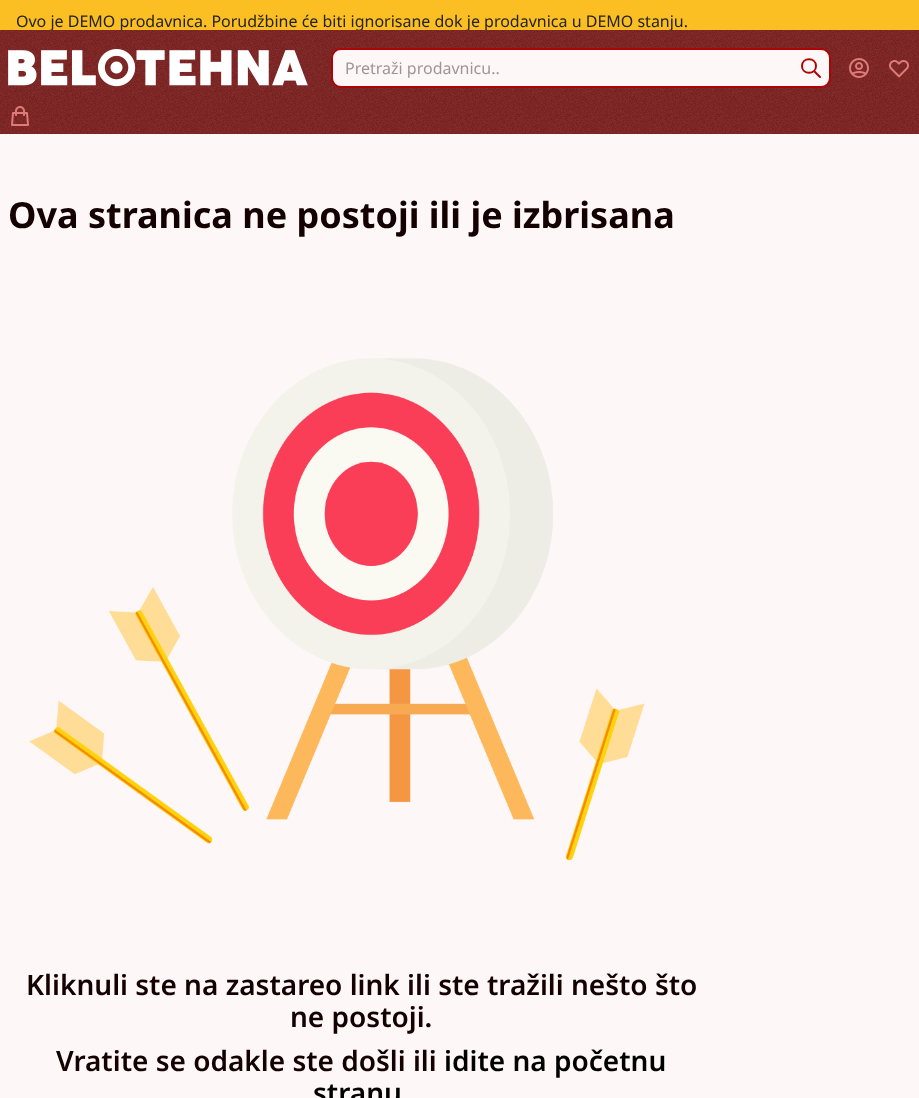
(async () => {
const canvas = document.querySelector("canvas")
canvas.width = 919
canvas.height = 1098
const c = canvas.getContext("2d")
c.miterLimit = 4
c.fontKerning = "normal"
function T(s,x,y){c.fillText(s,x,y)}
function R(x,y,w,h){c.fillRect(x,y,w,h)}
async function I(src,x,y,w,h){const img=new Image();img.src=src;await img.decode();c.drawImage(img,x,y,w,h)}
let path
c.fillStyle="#fef7f7"
R(0,0,919,1098)
c.fillStyle="#fbbf24"
R(0,0,919,30)
c.font="16px Noto Sans"
c.fillStyle="#222"
T("Ovo je DEMO prodavnica. Porudžbine će biti ignorisane dok je prodavnica u DEMO stanju.",16,27)
c.fillStyle="#7c0909"
R(0,30,919,104)
await I("1.png",0,30,919,104)
await I("2.png",8,49,300,38)
c.fillStyle="#fef7f7"
c.beginPath()
c.roundRect(332,49,498,38,9)
c.fill()
c.strokeStyle="#af0404"
c.lineWidth=2
c.stroke()
c.fillStyle="#a09595"
T("Pretraži prodavnicu..",345,74)
path = new Path2D("M820 77l-6-6m2-5c0 9-14 9-14 0c0-9 14-9 14 0z")
c.lineCap="round"
c.lineJoin="round"
c.stroke(path)
await I("3.png",849,58,20,20)
await I("4.png",889,60,20,18)
await I("5.png",11,106,18,20)
c.font="bold 36px Noto Sans"
c.fillStyle="#140101"
T("Ova stranica ne postoji ili je izbrisana",8,228)
await I("6.png",29,358,616,503)
c.font="600 28px Noto Sans"
T("Kliknuli ste na zastareo link ili ste tražili nešto što",26,995)
T("ne postoji.",290,1027)
T("Vratite se odakle ste došli ili",56,1071)
c.fillStyle="#000"
T("idite na početnu",444,1071)
T("stranu",313,1103)
})()
